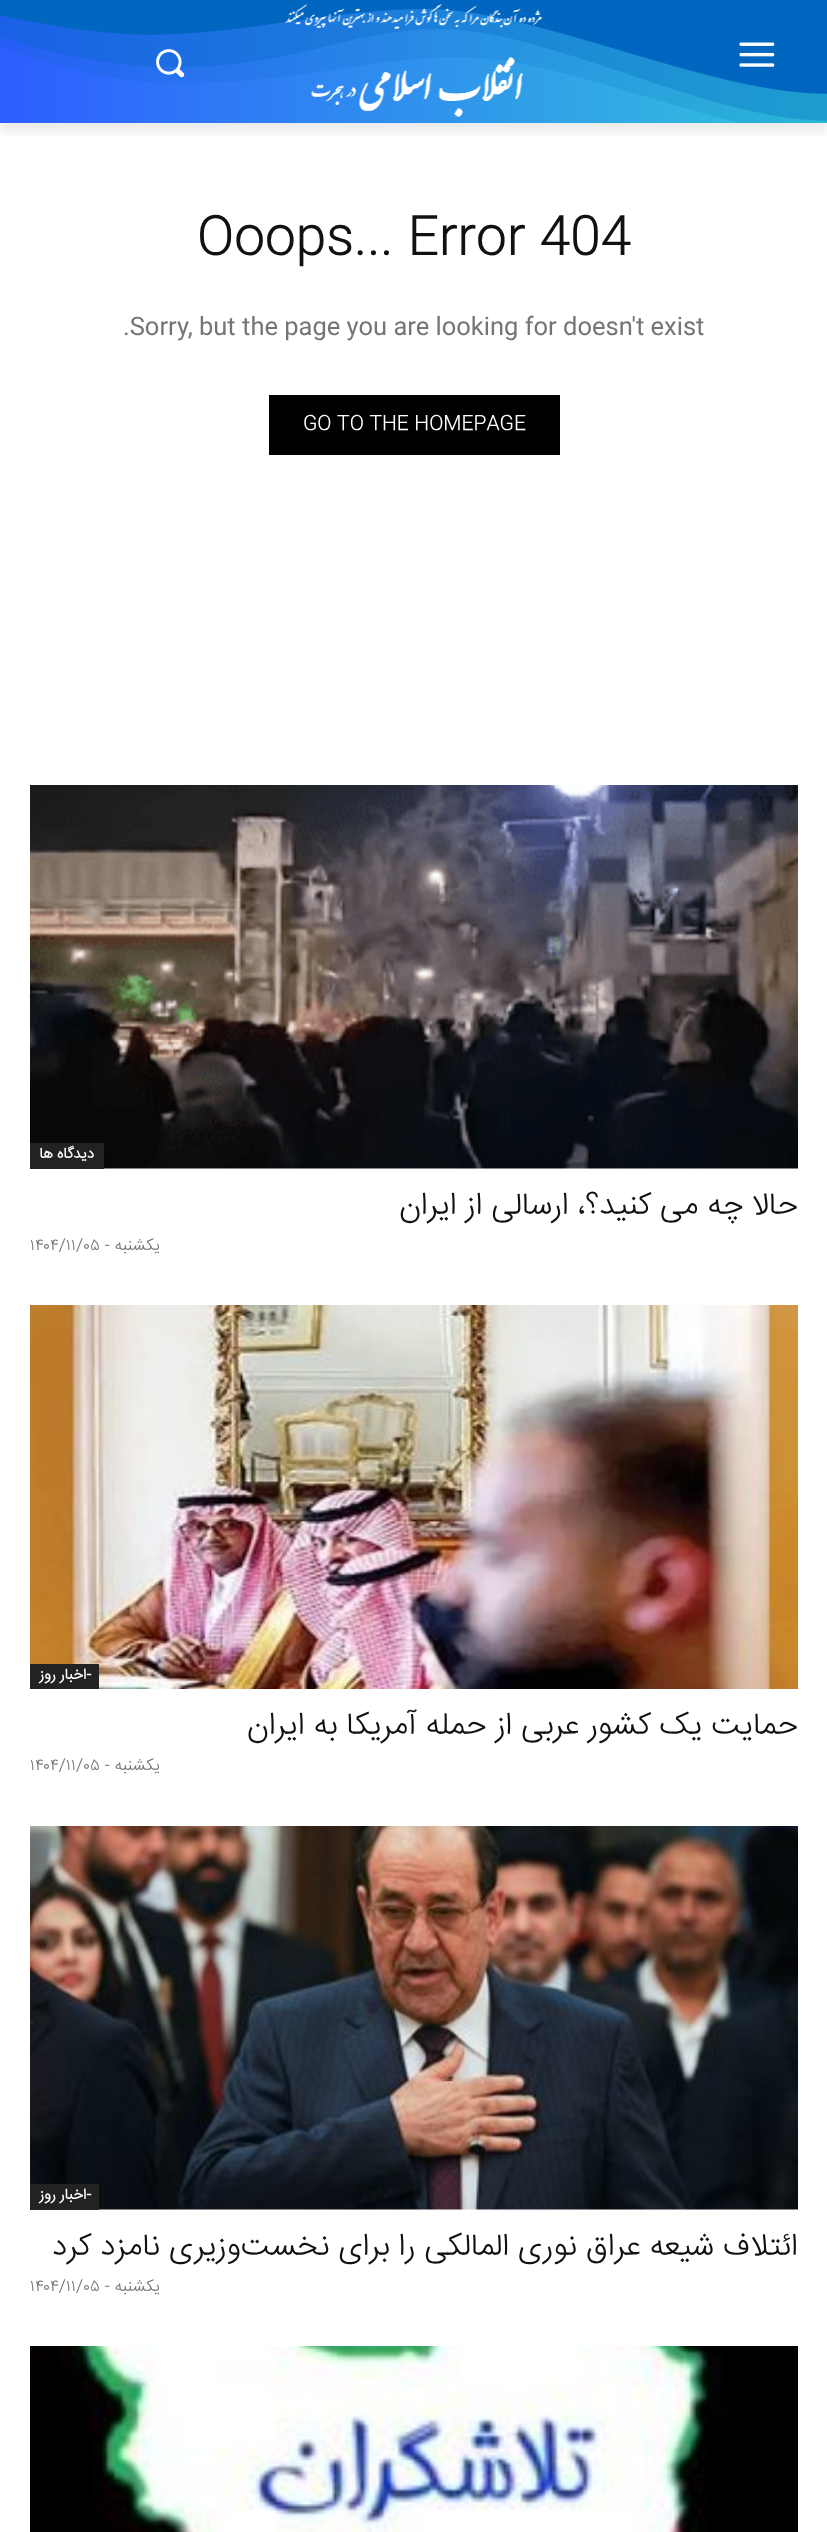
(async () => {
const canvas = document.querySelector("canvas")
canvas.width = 827
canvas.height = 2532
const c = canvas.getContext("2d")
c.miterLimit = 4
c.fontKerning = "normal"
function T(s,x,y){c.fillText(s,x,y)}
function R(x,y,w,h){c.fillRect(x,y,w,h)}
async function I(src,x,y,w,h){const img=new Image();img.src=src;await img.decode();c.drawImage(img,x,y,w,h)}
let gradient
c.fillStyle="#fff"
R(0,0,827,2532)
gradient = c.createLinearGradient(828,62,0,61)
gradient.addColorStop(0,"#32c4db")
gradient.addColorStop(1,"#2d5eff")
c.fillStyle = gradient
R(0,8,827,115)
await I("1.png",0,0,827,123)
await I("2.png",284,4,258,113)
await I("3.png",739,42,36,25)
await I("4.png",156,49,29,29)
c.save()
c.beginPath()
c.rect(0,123,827,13)
c.clip()
c.fillStyle="#00000014"
c.filter="blur(6px)"
c.beginPath()
c.rect(0,9,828,123)
c.fill()
c.filter="none"
c.restore()
c.font="300 51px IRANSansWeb"
c.fillStyle="#111"
T("Ooops... Error 404",197,252)
c.font="25.5px Roboto"
c.fillStyle="#757575"
T(".Sorry, but the page you are looking for doesn't exist",123,335)
c.fillStyle="#000"
R(269,395,291,60)
c.font="300 19.5px IRANSansWeb"
c.fillStyle="#fff"
T("GO TO THE HOMEPAGE",303,429)
await I("5.png",30,785,768,384)
c.fillStyle="#222"
R(30,1143,74,26)
c.direction="rtl"
c.font="bold 15px IRANSansWeb"
c.fillStyle="#fff"
T("دیدگاه ها",94,1158)
c.font="300 31.5px IRANSansWeb"
c.fillStyle="#111"
T("حالا چه می کنید؟، ارسالی از ایران",798,1214)
c.font="300 16.5px IRANSansWeb"
c.fillStyle="#757575"
T("یکشنبه -",160,1250)
c.direction="ltr"
T("۱۴۰۴/۱۱/۰۵",30,1250)
await I("6.png",30,1305,768,384)
c.fillStyle="#222"
R(30,1664,69,25)
c.direction="rtl"
c.font="bold 15px IRANSansWeb"
c.fillStyle="#fff"
T("-اخبار روز",91,1679)
c.font="300 31.5px IRANSansWeb"
c.fillStyle="#111"
T("حمایت یک کشور عربی از حمله آمریکا به ایران",798,1734)
c.font="300 16.5px IRANSansWeb"
c.fillStyle="#757575"
T("یکشنبه -",160,1770)
c.direction="ltr"
T("۱۴۰۴/۱۱/۰۵",30,1770)
await I("7.png",30,1826,768,384)
c.fillStyle="#222"
R(30,2184,69,26)
c.direction="rtl"
c.font="bold 15px IRANSansWeb"
c.fillStyle="#fff"
T("-اخبار روز",91,2199)
c.font="300 31.5px IRANSansWeb"
c.fillStyle="#111"
T("ائتلاف شیعه عراق نوری المالکی را برای نخست‌وزیری نامزد کرد",798,2255)
c.font="300 16.5px IRANSansWeb"
c.fillStyle="#757575"
T("یکشنبه -",160,2291)
c.direction="ltr"
T("۱۴۰۴/۱۱/۰۵",30,2291)
await I("8.png",30,2346,768,186)
})()
